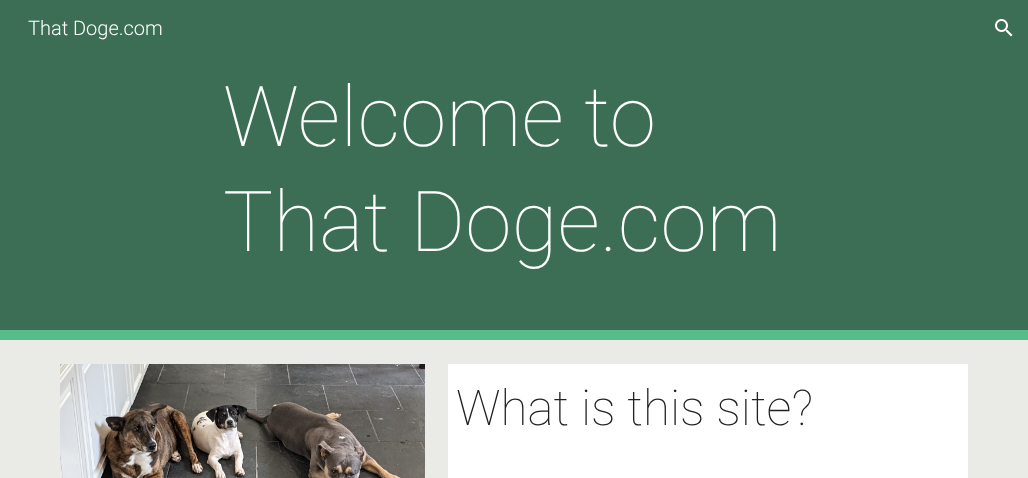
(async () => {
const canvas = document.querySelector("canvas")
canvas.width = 1028
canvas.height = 478
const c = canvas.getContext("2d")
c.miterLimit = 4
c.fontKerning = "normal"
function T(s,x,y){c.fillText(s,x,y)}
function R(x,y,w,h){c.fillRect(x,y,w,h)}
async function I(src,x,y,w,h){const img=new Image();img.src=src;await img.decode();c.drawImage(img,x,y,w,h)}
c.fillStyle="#eaebe6"
R(0,0,1028,478)
c.fillStyle="#3c6e55"
R(0,0,1028,330)
c.font="300 20px Roboto"
c.fillStyle="#fff"
T("That Doge.com",28,35)
await I("1.png",995,19,18,18)
c.fillStyle="#57bb8a"
R(0,330,1028,10)
c.font="100 84px Roboto"
c.fillStyle="#fff"
T("Welcome to",223,146)
T("That Doge.com",223,251)
await I("2.png",60,364,365,114)
R(448,364,520,114)
c.font="100 49.25px Roboto"
c.fillStyle="#212121"
T("What is this site?",456,425)
})()
